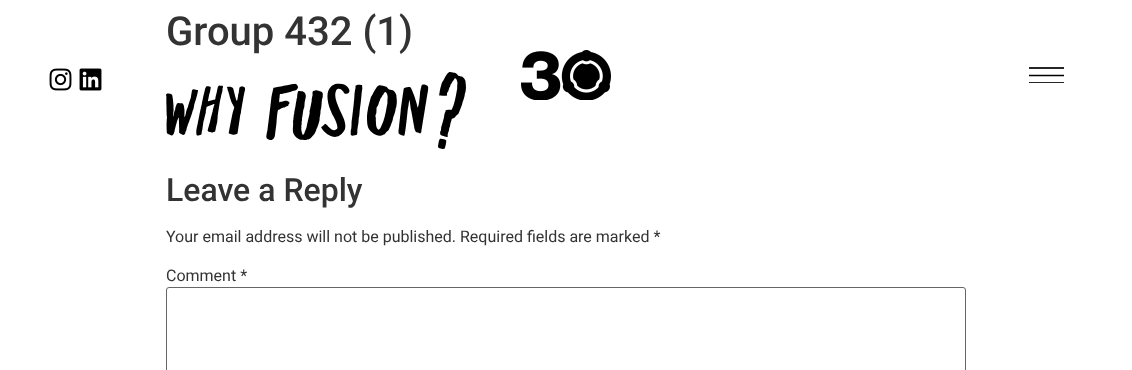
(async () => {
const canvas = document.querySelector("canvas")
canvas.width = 1132
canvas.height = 370
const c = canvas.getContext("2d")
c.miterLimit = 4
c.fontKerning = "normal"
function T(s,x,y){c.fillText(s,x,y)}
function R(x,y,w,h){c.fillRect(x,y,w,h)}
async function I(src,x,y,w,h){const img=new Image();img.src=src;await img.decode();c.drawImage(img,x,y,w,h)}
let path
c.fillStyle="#fff"
R(0,0,1132,370)
c.font="500 40px Roboto"
c.fillStyle="#333"
T("Group 432 (1)",166,45)
await I("1.png",166,72,300,77)
c.font="500 32px Roboto"
T("Leave a Reply",166,201)
c.font="16px Roboto"
T("Your email address will not be published. Required fields are marked *",166,242)
T("Comment *",166,281)
c.beginPath()
c.roundRect(166.5,287.5,799,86,2.5)
c.strokeStyle="#666"
c.stroke()
await I("2.png",49,68,23,23)
await I("3.png",79,68,23,23)
await I("4.png",521,50,90,50)
c.fillStyle="#262626"
R(1029,67,35,2)
path = new Path2D("M1029 75.5h35")
c.strokeStyle="#000"
c.lineWidth=1.7
c.stroke(path)
R(1029,82,35,1)
})()
